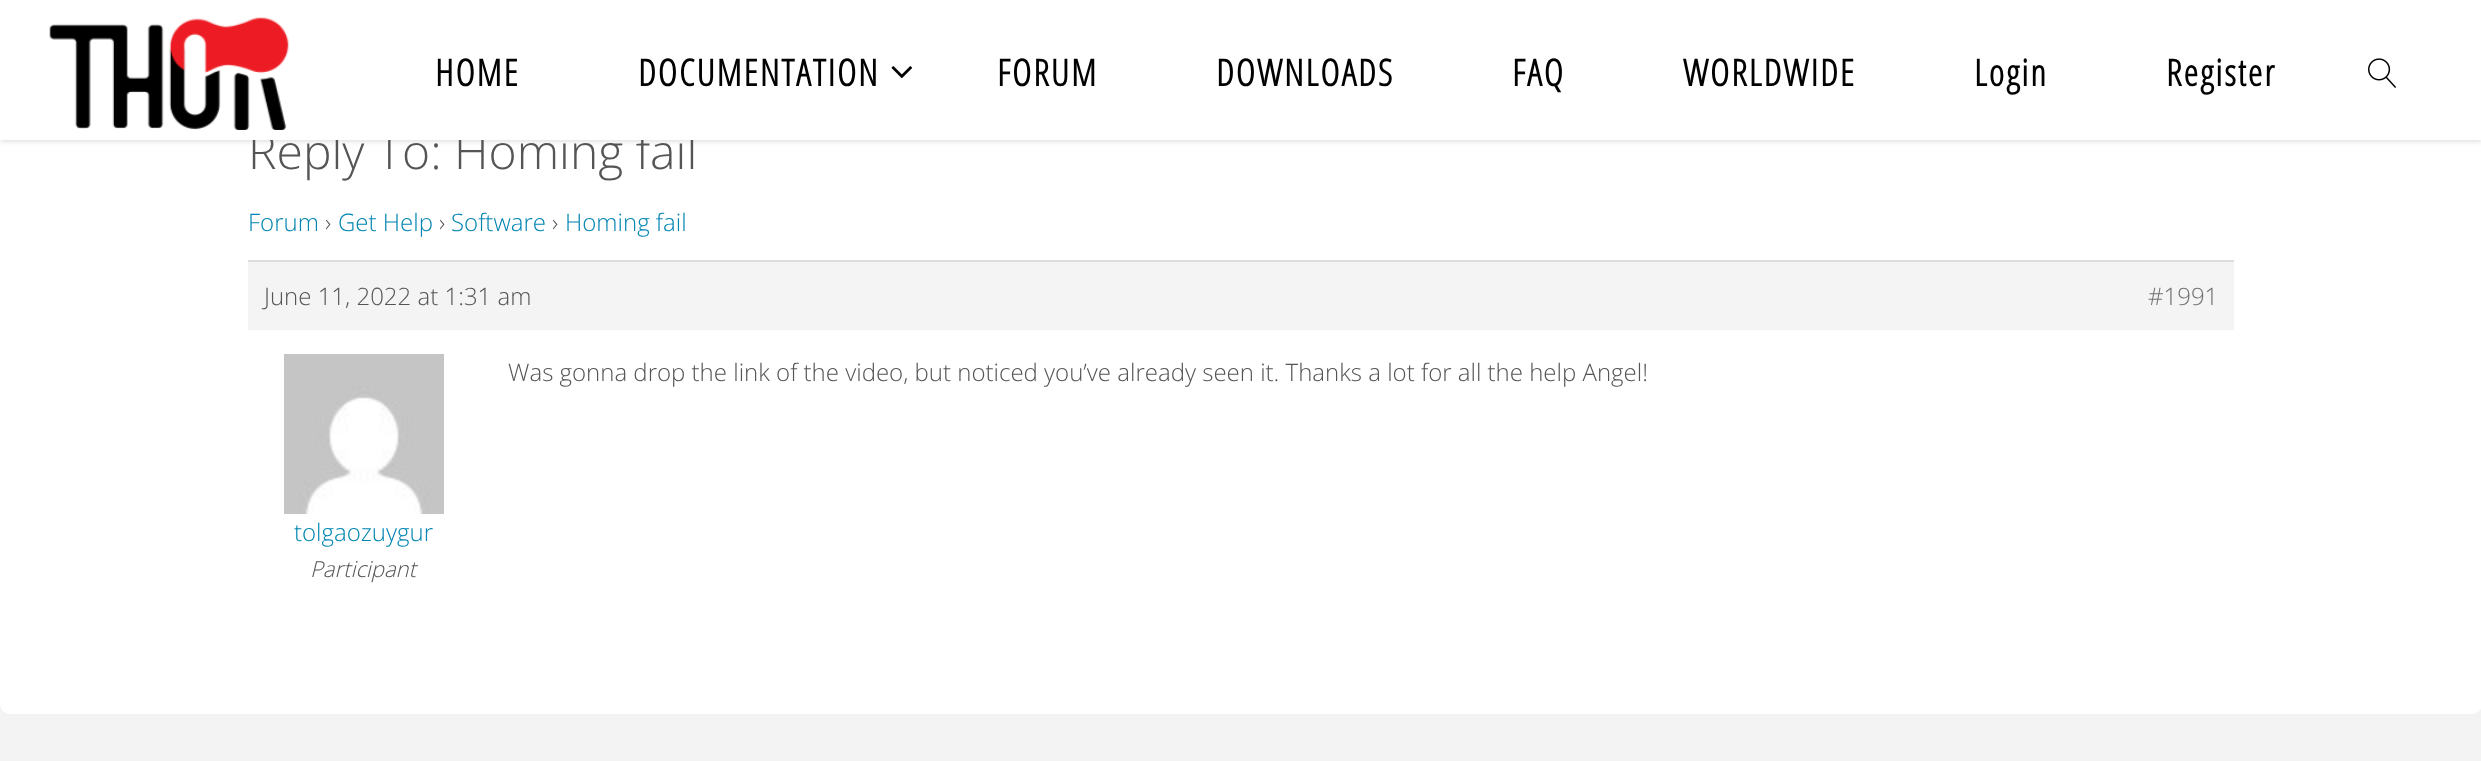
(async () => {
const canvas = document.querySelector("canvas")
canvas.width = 2481
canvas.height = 761
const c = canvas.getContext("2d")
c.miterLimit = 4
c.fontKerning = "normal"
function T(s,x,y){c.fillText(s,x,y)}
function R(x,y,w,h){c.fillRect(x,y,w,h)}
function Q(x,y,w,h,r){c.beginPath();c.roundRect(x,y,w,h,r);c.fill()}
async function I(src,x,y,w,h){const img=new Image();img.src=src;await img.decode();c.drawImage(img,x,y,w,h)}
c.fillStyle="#f3f3f3"
R(0,0,2481,761)
c.fillStyle="#fff"
Q(0,48,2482,666,10)
c.fillStyle="#00000033"
c.filter="blur(3px)"
c.beginPath()
c.rect(0,0,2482,140)
c.fill()
c.filter="none"
c.font="300 48px Open Sans"
c.fillStyle="#555"
T("Reply To: Homing fail",248,169)
c.fillStyle="#fff"
R(0,0,2481,140)
await I("1.png",49,17,240,113)
c.letterSpacing="2px"
c.font="bold 36.75px Open Sans Condensed"
c.fillStyle="#020000"
T("HOME",435,86)
T("DOCUMENTATION",638,86)
await I("2.png",891,66,21,12)
T("FORUM",997,86)
T("DOWNLOADS",1216,86)
T("FAQ",1512,86)
T("WORLDWIDE",1683,86)
T("Login",1974,86)
T("Register",2166,86)
await I("3.png",2368,58,28,30)
c.letterSpacing="0px"
c.font="300 24px Open Sans"
c.fillStyle="#0085b2"
T("Forum",248,231)
c.fillStyle="#555"
T("›",325,231)
c.fillStyle="#0085b2"
T("Get Help",338,231)
c.fillStyle="#555"
T("›",439,231)
c.fillStyle="#0085b2"
T("Software",451,231)
c.fillStyle="#555"
T("›",552,231)
c.fillStyle="#0085b2"
T("Homing fail",565,231)
c.fillStyle="#f4f4f4"
R(248,262,1986,68)
c.fillStyle="#ddd"
R(248,260,1986,2)
c.fillStyle="#555"
T("June 11, 2022 at 1:31 am",264,305)
c.fillStyle="#707070"
T("#1991",2148,305)
c.fillStyle="#555"
T("Was gonna drop the link of the video, but noticed you’ve already seen it. Thanks a lot for all the help Angel!",508,381)
await I("4.png",284,354,160,160)
c.fillStyle="#0085b2"
T("tolgaozuygur",294,541)
c.font="italic 300 22px Open Sans"
c.fillStyle="#555"
T("Participant",310,577)
})()
